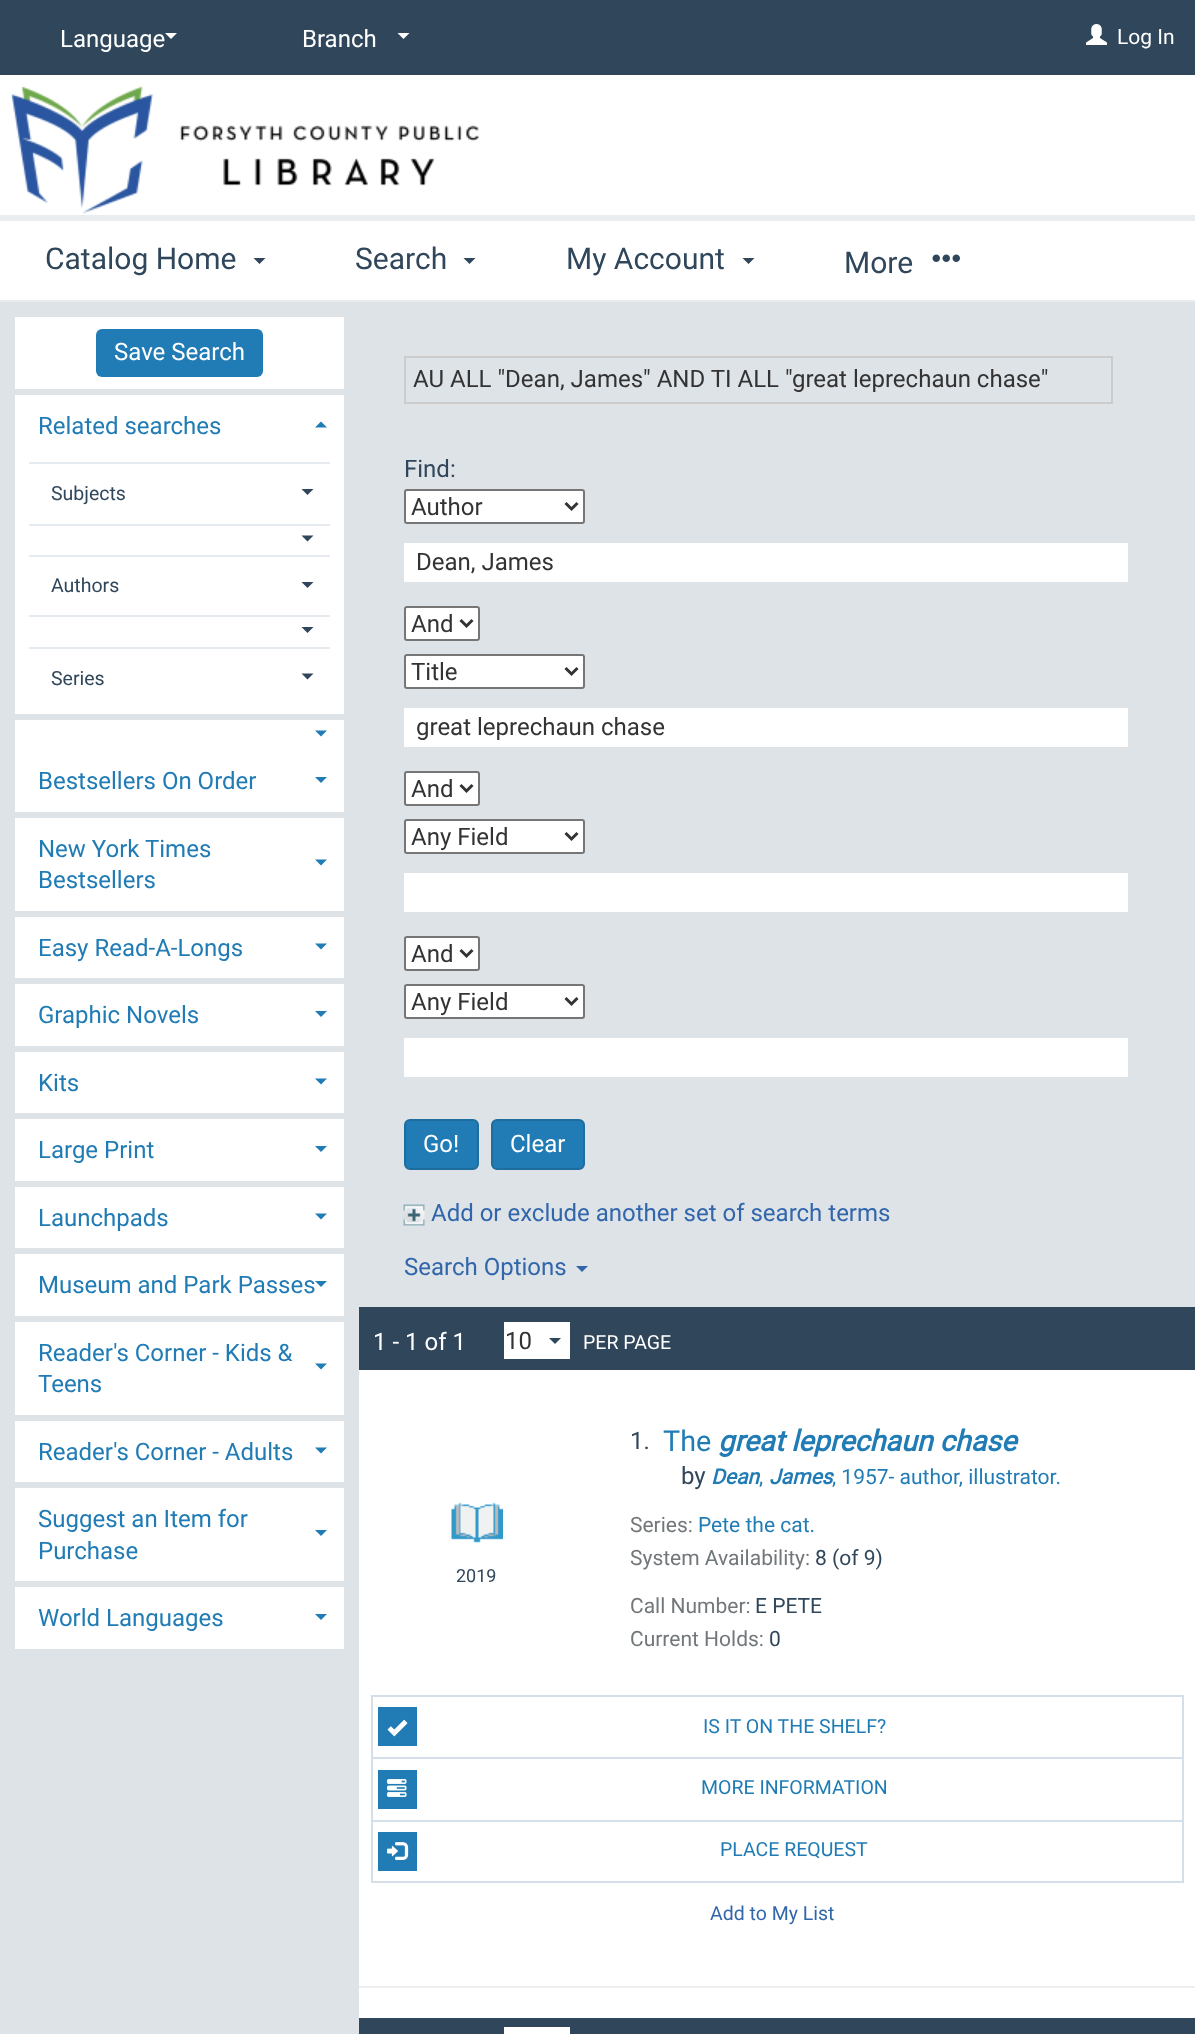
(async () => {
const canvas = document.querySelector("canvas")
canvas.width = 1195
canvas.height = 2034
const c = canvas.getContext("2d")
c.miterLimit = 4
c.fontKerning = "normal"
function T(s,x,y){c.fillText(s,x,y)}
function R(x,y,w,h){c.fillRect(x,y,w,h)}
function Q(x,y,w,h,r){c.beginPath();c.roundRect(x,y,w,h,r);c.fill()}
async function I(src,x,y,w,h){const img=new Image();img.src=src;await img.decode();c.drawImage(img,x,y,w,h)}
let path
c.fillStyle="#30465b"
R(0,0,1195,2034)
c.fillStyle="#eaedf0"
R(0,300,1195,2)
c.font="24px Roboto"
c.fillStyle="#fff"
T("Language",60,47)
path = new Path2D("M165 33h12l-6 6z")
c.fill(path)
T("Branch",302,47)
path = new Path2D("M397.5 33h12l-6 6z")
c.fill(path)
R(0,221,1195,79)
c.fillStyle="#eaedf0"
R(0,215,1195,6)
c.font="30px Roboto"
c.fillStyle="#30465b"
T("Catalog Home",45,269)
path = new Path2D("M253.5 258h12l-6 6z")
c.fill(path)
T("Search",355,269)
path = new Path2D("M463.5 258h12l-6 6z")
c.fill(path)
T("My Account",566,269)
path = new Path2D("M742.5 258h12l-6 6z")
c.fill(path)
T("More",844,273)
await I("1.png",932,254,28,8)
await I("2.png",1086,24,21,21)
c.font="21px Roboto"
c.fillStyle="#fff"
T("Log In",1117,44)
R(0,75,1195,140)
await I("3.png",11,86,468,128)
c.fillStyle="#dee3e8"
R(0,302,359,1732)
c.fillStyle="#fff"
R(15,317,329,72)
c.fillStyle="#217cb5"
Q(96,329,167,48,6)
c.font="24px Roboto"
c.fillStyle="#fff"
T("Save Search",114,360)
R(15,395,329,319)
c.fillStyle="#217cb5"
T("Related searches",38,434)
path = new Path2D("M327 427.5h-12l6-6z")
c.fill(path)
c.fillStyle="#e5ebf1"
R(29,462,301,2)
c.font="19.5px Roboto"
c.fillStyle="#30465b"
T("Subjects",51,500)
path = new Path2D("M301.5 489h12l-6 6z")
c.fill(path)
c.fillStyle="#e5ebf1"
R(29,524,301,2)
c.fillStyle="#30465b"
path = new Path2D("M301.5 535.5h12l-6 6z")
c.fill(path)
c.fillStyle="#e5ebf1"
R(29,555,301,2)
c.fillStyle="#30465b"
T("Authors",51,592)
path = new Path2D("M301.5 582h12l-6 6z")
c.fill(path)
c.fillStyle="#e5ebf1"
R(29,615,301,2)
c.fillStyle="#30465b"
path = new Path2D("M301.5 627h12l-6 6z")
c.fill(path)
c.fillStyle="#e5ebf1"
R(29,647,301,2)
c.fillStyle="#30465b"
T("Series",51,685)
path = new Path2D("M301.5 673.5h12l-6 6z")
c.fill(path)
c.fillStyle="#fff"
R(15,720,329,92)
c.fillStyle="#217cb5"
path = new Path2D("M315 730.5h12l-6 6z")
c.fill(path)
c.font="24px Roboto"
T("Bestsellers On Order",38,789)
path = new Path2D("M315 777h12l-6 6z")
c.fill(path)
c.fillStyle="#fff"
R(15,818,329,93)
c.fillStyle="#217cb5"
T("New York Times",38,857)
path = new Path2D("M315 859.5h12l-6 6z")
c.fill(path)
T("Bestsellers",38,888)
c.fillStyle="#fff"
R(15,917,329,61)
c.fillStyle="#217cb5"
T("Easy Read-A-Longs",38,956)
path = new Path2D("M315 943.5h12l-6 6z")
c.fill(path)
c.fillStyle="#fff"
R(15,984,329,62)
c.fillStyle="#217cb5"
T("Graphic Novels",38,1023)
path = new Path2D("M315 1011h12l-6 6z")
c.fill(path)
c.fillStyle="#fff"
R(15,1052,329,61)
c.fillStyle="#217cb5"
T("Kits",38,1091)
path = new Path2D("M315 1078.5h12l-6 6z")
c.fill(path)
c.fillStyle="#fff"
R(15,1119,329,62)
c.fillStyle="#217cb5"
T("Large Print",38,1158)
path = new Path2D("M315 1146h12l-6 6z")
c.fill(path)
c.fillStyle="#fff"
R(15,1187,329,61)
c.fillStyle="#217cb5"
T("Launchpads",38,1226)
path = new Path2D("M315 1213.5h12l-6 6z")
c.fill(path)
c.fillStyle="#fff"
R(15,1254,329,62)
c.fillStyle="#217cb5"
T("Museum and Park Passes",38,1293)
path = new Path2D("M315 1281h12l-6 6z")
c.fill(path)
c.fillStyle="#fff"
R(15,1322,329,93)
c.fillStyle="#217cb5"
T("Reader's Corner - Kids &",38,1361)
path = new Path2D("M315 1363.5h12l-6 6z")
c.fill(path)
T("Teens",38,1392)
c.fillStyle="#fff"
R(15,1421,329,61)
c.fillStyle="#217cb5"
T("Reader's Corner - Adults",38,1460)
path = new Path2D("M315 1447.5h12l-6 6z")
c.fill(path)
c.fillStyle="#fff"
R(15,1488,329,93)
c.fillStyle="#217cb5"
T("Suggest an Item for",38,1527)
path = new Path2D("M315 1530h12l-6 6z")
c.fill(path)
T("Purchase",38,1559)
c.fillStyle="#fff"
R(15,1587,329,62)
c.fillStyle="#217cb5"
T("World Languages",38,1626)
path = new Path2D("M315 1614h12l-6 6z")
c.fill(path)
c.fillStyle="#fff"
R(359,1370,836,648)
c.fillStyle="#dee3e8"
R(359,302,836,1005)
c.strokeStyle="#ccc"
c.lineWidth=2
c.strokeRect(405,357,707,46)
c.fillStyle="#333"
T("AU ALL \"Dean, James\" AND TI ALL \"great leprechaun chase\"",413,387)
c.fillStyle="#30465b"
T("Find:",404,477)
c.fillStyle="#fff"
c.beginPath()
c.roundRect(405,490,179,33,2)
c.fill()
c.strokeStyle="#767676"
c.stroke()
path = new Path2D("M565.5 503l6 6l6-6")
c.strokeStyle="#333"
c.lineWidth=3
c.stroke(path)
c.fillStyle="#333"
T("Author",411,515)
c.fillStyle="#fff"
R(404,543,724,39)
c.fillStyle="#333"
T("Dean, James",416,570)
c.fillStyle="#fff"
c.beginPath()
c.roundRect(405,607,74,33,2)
c.fill()
c.strokeStyle="#767676"
c.lineWidth=2
c.stroke()
path = new Path2D("M460.5 620l6 6l6-6")
c.strokeStyle="#333"
c.lineWidth=3
c.stroke(path)
c.fillStyle="#333"
T("And",411,632)
c.fillStyle="#fff"
c.beginPath()
c.roundRect(405,655,179,33,2)
c.fill()
c.strokeStyle="#767676"
c.lineWidth=2
c.stroke()
path = new Path2D("M565.5 668l6 6l6-6")
c.strokeStyle="#333"
c.lineWidth=3
c.stroke(path)
c.fillStyle="#333"
T("Title",411,680)
c.fillStyle="#fff"
R(404,708,724,39)
c.fillStyle="#333"
T("great leprechaun chase",416,735)
c.fillStyle="#fff"
c.beginPath()
c.roundRect(405,772,74,33,2)
c.fill()
c.strokeStyle="#767676"
c.lineWidth=2
c.stroke()
path = new Path2D("M460.5 785l6 6l6-6")
c.strokeStyle="#333"
c.lineWidth=3
c.stroke(path)
c.fillStyle="#333"
T("And",411,797)
c.fillStyle="#fff"
c.beginPath()
c.roundRect(405,820,179,33,2)
c.fill()
c.strokeStyle="#767676"
c.lineWidth=2
c.stroke()
path = new Path2D("M565.5 833l6 6l6-6")
c.strokeStyle="#333"
c.lineWidth=3
c.stroke(path)
c.fillStyle="#333"
T("Any Field",411,845)
c.fillStyle="#fff"
R(404,873,724,39)
c.beginPath()
c.roundRect(405,937,74,33,2)
c.fill()
c.strokeStyle="#767676"
c.lineWidth=2
c.stroke()
path = new Path2D("M460.5 950l6 6l6-6")
c.strokeStyle="#333"
c.lineWidth=3
c.stroke(path)
c.fillStyle="#333"
T("And",411,962)
c.fillStyle="#fff"
c.beginPath()
c.roundRect(405,985,179,33,2)
c.fill()
c.strokeStyle="#767676"
c.lineWidth=2
c.stroke()
path = new Path2D("M565.5 998l6 6l6-6")
c.strokeStyle="#333"
c.lineWidth=3
c.stroke(path)
c.fillStyle="#333"
T("Any Field",411,1010)
c.fillStyle="#fff"
R(404,1038,724,39)
c.fillStyle="#217cb5"
c.beginPath()
c.roundRect(405,1120,73,49,5)
c.fill()
c.strokeStyle="#1d6d9f"
c.lineWidth=2
c.stroke()
c.fillStyle="#fff"
T("Go!",423,1152)
c.fillStyle="#217cb5"
c.beginPath()
c.roundRect(492,1120,92,49,5)
c.fill()
c.stroke()
c.fillStyle="#fff"
T("Clear",510,1152)
await I("4.png",403,1204,22,22)
c.fillStyle="#3166aa"
T("Add or exclude another set of search terms",431,1221)
T("Search Options",404,1275)
path = new Path2D("M576 1266h12l-6 6z")
c.fill(path)
c.fillStyle="#fff"
T("1 - 1 of 1",373,1350)
R(504,1322,66,37)
c.fillStyle="#333"
T("10",505,1349)
c.fillStyle="#30465b"
path = new Path2D("M549 1338h12l-6 6z")
c.fill(path)
c.font="19.5px Roboto"
c.fillStyle="#fff"
T("PER PAGE",583,1349)
await I("5.png",451,1502,52,41)
c.font="18px Roboto"
c.fillStyle="#30465b"
T("2019",456,1582)
c.font="24px Roboto"
T("1.",630,1449)
c.font="28.75px Roboto"
c.fillStyle="#217cb5"
T("The",663,1451)
c.font="italic bold 28.75px Roboto"
T("great leprechaun chase",718,1451)
c.font="24px Roboto"
c.fillStyle="#30465b"
T("by",681,1484)
c.font="italic bold 21px Roboto"
c.fillStyle="#217cb5"
T("Dean",711,1484)
c.font="21px Roboto"
T(",",759,1484)
c.font="italic bold 21px Roboto"
T("James",769,1484)
c.font="21px Roboto"
T(", 1957- author, illustrator.",832,1484)
c.fillStyle="#71777a"
T("Series:",630,1532)
c.fillStyle="#217cb5"
T("Pete the cat.",698,1532)
c.fillStyle="#71777a"
T("System Availability:",630,1565)
c.fillStyle="#30465b"
T("8 (of 9)",815,1565)
c.fillStyle="#71777a"
T("Call Number:",630,1613)
c.fillStyle="#30465b"
T("E PETE",755,1613)
c.fillStyle="#71777a"
T("Current Holds:",630,1646)
c.fillStyle="#30465b"
T("0",769,1646)
c.fillStyle="#d4dfe9"
R(371,1881,813,2)
R(371,1695,813,2)
R(1182,1695,2,62)
R(371,1695,2,62)
c.fillStyle="#217cb5"
R(378,1707,39,39)
await I("6.png",387,1719,21,18)
c.font="19.5px Roboto"
T("IS IT ON THE SHELF?",703,1733)
c.fillStyle="#d4dfe9"
R(371,1757,813,2)
R(1182,1757,2,63)
R(371,1757,2,63)
c.fillStyle="#217cb5"
R(378,1770,39,39)
await I("7.png",387,1779,20,18)
T("MORE INFORMATION",701,1794)
c.fillStyle="#d4dfe9"
R(371,1820,813,2)
R(1182,1820,2,61)
R(371,1820,2,61)
c.fillStyle="#217cb5"
R(378,1832,39,39)
await I("8.png",387,1842,22,18)
T("PLACE REQUEST",720,1856)
c.fillStyle="#3166aa"
T("Add to My List",710,1920)
c.fillStyle="#eee"
R(359,1986,836,2)
c.fillStyle="#fff"
R(504,2027,66,7)
})()
